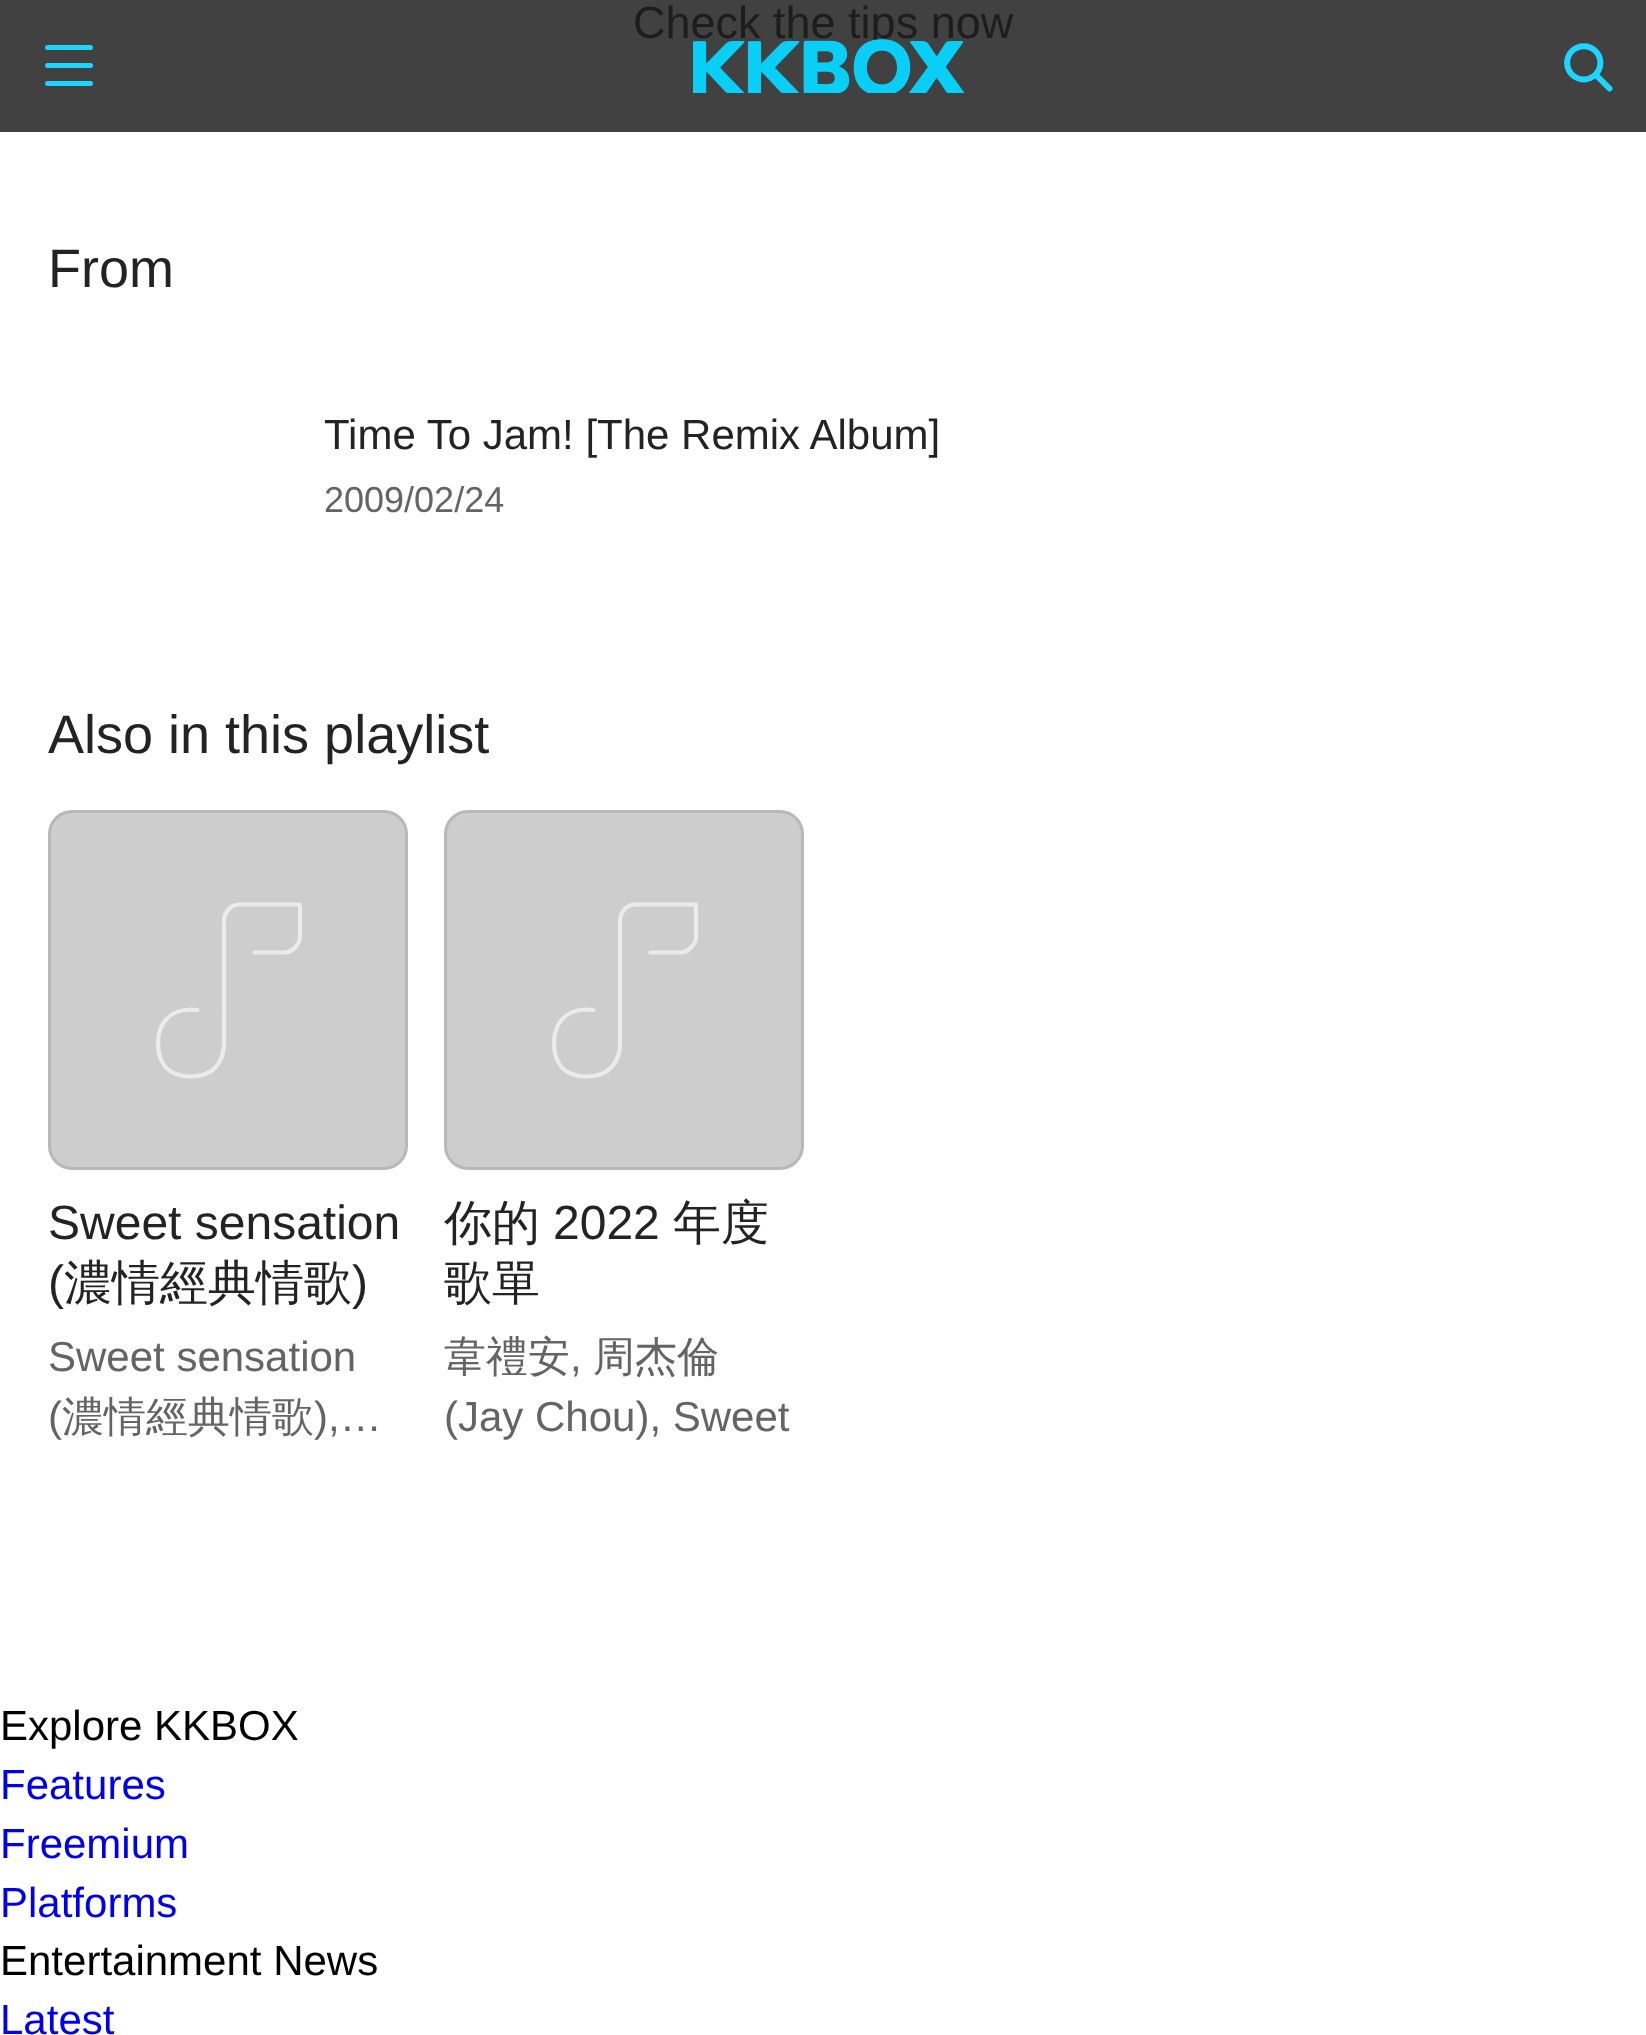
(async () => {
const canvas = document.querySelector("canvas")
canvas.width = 1646
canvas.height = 2035
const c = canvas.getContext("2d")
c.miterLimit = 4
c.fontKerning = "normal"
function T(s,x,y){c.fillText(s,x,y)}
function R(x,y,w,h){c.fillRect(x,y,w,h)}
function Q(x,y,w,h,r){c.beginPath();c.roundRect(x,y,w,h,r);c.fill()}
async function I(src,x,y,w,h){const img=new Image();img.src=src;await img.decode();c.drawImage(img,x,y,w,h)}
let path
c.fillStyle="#fff"
R(0,0,1646,2035)
c.fillStyle="#414141"
R(0,0,1646,132)
c.font="45px Liberation Sans"
c.fillStyle="#1d1d1d"
T("Check the tips now",633,38)
c.font="54px Liberation Sans"
c.fillStyle="#232323"
T("From",48,287)
c.font="42px Liberation Sans"
T("Time To Jam! [The Remix Album]",324,449)
c.font="36px Liberation Sans"
c.fillStyle="#646464"
T("2009/02/24",324,512)
c.font="54px Liberation Sans"
c.fillStyle="#232323"
T("Also in this playlist",48,753)
c.fillStyle="#cdcdcd"
Q(48,810,360,360,24)
path = new Path2D("M197.5 1010l-6.5-.5c-22.5 0-33 15-33 33.5c0 19.5 9.5 33.5 33 33.5c23.5 0 33-16 33-33.5v-121.5c0-11 8.5-17 15-17h61v32c0 9-9 16-15.5 16h-30")
c.strokeStyle="#ebebeb"
c.lineWidth=4.2
c.lineCap="round"
c.lineJoin="round"
c.stroke(path)
c.beginPath()
c.roundRect(49.5,811.5,357,357,22.5)
c.strokeStyle="#0000001a"
c.lineWidth=3
c.lineJoin="miter"
c.stroke()
c.font="48px Liberation Sans"
c.fillStyle="#232323"
T("Sweet sensation",48,1239)
T("(",48,1299)
c.font="500 48px WenQuanYi Zen Hei"
T("濃情經典情歌",64,1299)
c.font="48px Liberation Sans"
T(")",352,1299)
c.font="42px Liberation Sans"
c.fillStyle="#646464"
T("Sweet sensation",48,1371)
T("(",48,1431)
c.font="500 42px WenQuanYi Zen Hei"
T("濃情經典情歌",62,1431)
c.font="42px Liberation Sans"
T("),…",314,1431)
c.fillStyle="#cdcdcd"
Q(444,810,360,360,24)
path = new Path2D("M593.5 1010l-6.5-.5c-22.5 0-33 15-33 33.5c0 19.5 9.5 33.5 33 33.5c23.5 0 33-16 33-33.5v-121.5c0-11 8.5-17 15-17h61v32c0 9-9 16-15.5 16h-30")
c.strokeStyle="#ebebeb"
c.lineWidth=4.2
c.lineJoin="round"
c.stroke(path)
c.beginPath()
c.roundRect(445.5,811.5,357,357,22.5)
c.strokeStyle="#0000001a"
c.lineWidth=3
c.lineJoin="miter"
c.stroke()
c.font="500 48px WenQuanYi Zen Hei"
c.fillStyle="#232323"
T("你的",444,1239)
c.font="48px Liberation Sans"
T("2022",553,1239)
c.font="500 48px WenQuanYi Zen Hei"
T("年度",673,1239)
T("歌單",444,1299)
c.font="500 42px WenQuanYi Zen Hei"
c.fillStyle="#646464"
T("韋禮安",444,1371)
c.font="42px Liberation Sans"
T(",",570,1371)
c.font="500 42px WenQuanYi Zen Hei"
T("周杰倫",593,1371)
c.font="42px Liberation Sans"
T("(Jay Chou), Sweet",444,1431)
c.fillStyle="#1dd6ff"
Q(45,45,48,5,2.5)
Q(45,63,48,5,2.5)
Q(45,81,48,5,2.5)
await I("1.png",693,39,272,54)
path = new Path2D("M1572 51c6.5-6.5 17-6.5 23.5 0c6.5 6.5 6.5 17 0 23.5c-6.5 6.5-17 6.5-23.5 0c-6.5-6.5-6.5-17 0-23.5zm24.5 24.5l13 13")
c.strokeStyle="#1dd6ff"
c.lineWidth=6
c.lineJoin="round"
c.stroke(path)
c.fillStyle="#000"
T("Explore KKBOX",0,1740)
c.fillStyle="#00e"
T("Features",0,1799)
T("Freemium",0,1858)
T("Platforms",0,1917)
c.fillStyle="#000"
T("Entertainment News",0,1975)
c.fillStyle="#00e"
T("Latest",0,2034)
})()
